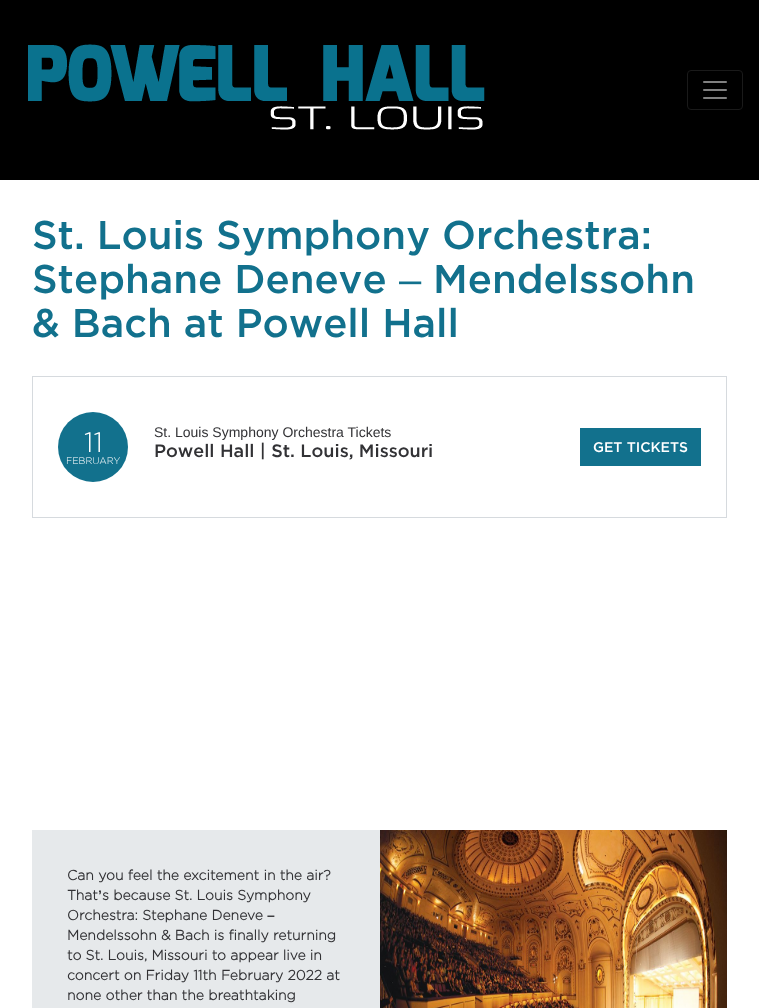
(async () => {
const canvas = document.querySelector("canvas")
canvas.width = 759
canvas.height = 1008
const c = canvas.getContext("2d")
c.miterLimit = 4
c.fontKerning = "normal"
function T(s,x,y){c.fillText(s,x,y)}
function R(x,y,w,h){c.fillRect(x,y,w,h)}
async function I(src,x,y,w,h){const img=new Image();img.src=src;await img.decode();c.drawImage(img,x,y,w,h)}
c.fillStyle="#fff"
R(0,0,759,1008)
c.fillStyle="#000"
R(0,0,759,180)
await I("1.png",28,44,457,86)
c.beginPath()
c.roundRect(687.5,70.5,55,39,3.5)
c.strokeStyle="#1a1a1a"
c.stroke()
await I("2.png",703,81,24,18)
c.font="500 40px Gotham"
c.fillStyle="#12718d"
T("St. Louis Symphony Orchestra:",32,249)
T("Stephane Deneve",32,293)
c.font="40px Liberation Sans"
T("–",399,293)
c.font="500 40px Gotham"
T("Mendelssohn",433,293)
T("& Bach at Powell Hall",32,337)
c.strokeStyle="#d6dade"
c.strokeRect(32.5,376.5,694,141)
c.beginPath()
c.arc(93,447,35,0,7)
c.fill()
c.font="300 28px Gotham"
c.fillStyle="#fff"
T("11",84,452)
c.font="300 9.5px Gotham"
T("FEBRUARY",66,464)
c.font="14px Liberation Sans"
c.fillStyle="#323235"
T("St. Louis Symphony Orchestra Tickets",154,437)
c.font="500 18px Gotham"
T("Powell Hall | St. Louis, Missouri",154,457)
c.fillStyle="#12718d"
R(580,428,121,38)
c.font="500 14px Gotham"
c.fillStyle="#fff"
T("GET TICKETS",593,452)
c.fillStyle="#e6e9eb"
R(32,830,348,178)
c.font="bold 14px Gotham"
c.fillStyle="#323235"
T("Can you feel the excitement in the air?",67,880)
T("That",67,900)
c.font="bold 14px Liberation Sans"
T("’",98,900)
c.font="bold 14px Gotham"
T("s because St. Louis Symphony",102,900)
T("Orchestra: Stephane Deneve",67,920)
c.font="bold 14px Liberation Sans"
T("–",267,920)
c.font="bold 14px Gotham"
T("Mendelssohn & Bach is finally returning",67,940)
T("to St. Louis, Missouri to appear live in",67,960)
T("concert on Friday 11th February 2022 at",67,980)
T("none other than the breathtaking",67,1000)
await I("3.png",380,830,347,178)
})()
